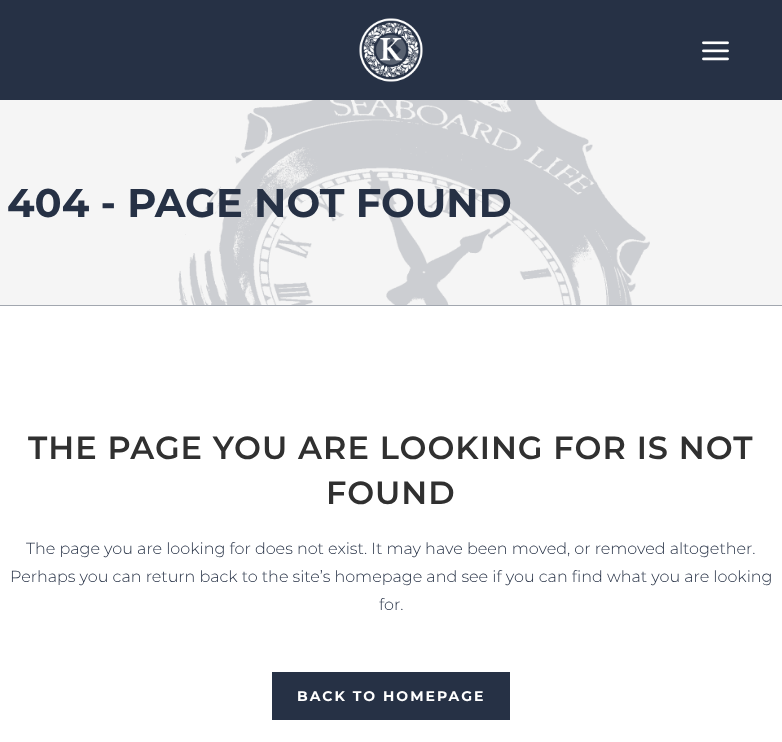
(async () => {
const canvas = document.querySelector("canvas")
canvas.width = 782
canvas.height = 742
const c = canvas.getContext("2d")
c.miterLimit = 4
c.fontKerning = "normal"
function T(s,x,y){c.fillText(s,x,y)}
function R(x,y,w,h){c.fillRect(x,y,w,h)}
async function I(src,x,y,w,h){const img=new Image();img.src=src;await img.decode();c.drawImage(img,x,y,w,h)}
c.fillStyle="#fff"
R(0,0,782,742)
c.fillStyle="#263145"
R(0,0,782,100)
await I("1.png",359,18,64,64)
await I("2.png",702,41,27,20)
c.fillStyle="#a2a7af"
R(0,305,782,1)
await I("3.png",0,100,782,205)
c.font="bold 40px Montserrat"
c.fillStyle="#263145"
T("404 - PAGE NOT FOUND",7,217)
c.letterSpacing="1px"
c.font="600 32px Montserrat"
c.fillStyle="#303030"
T("THE PAGE YOU ARE LOOKING FOR IS NOT",28,459)
T("FOUND",326,504)
c.letterSpacing="0px"
c.font="300 16px Montserrat"
c.fillStyle="#263145"
T("The page you are looking for does not exist. It may have been moved, or removed altogether.",26,554)
T("Perhaps you can return back to the site’s homepage and see if you can find what you are looking",10,582)
T("for.",379,610)
R(272,672,238,48)
c.letterSpacing="2px"
c.font="bold 14px Montserrat"
c.fillStyle="#fff"
T("BACK TO HOMEPAGE",297,701)
})()
